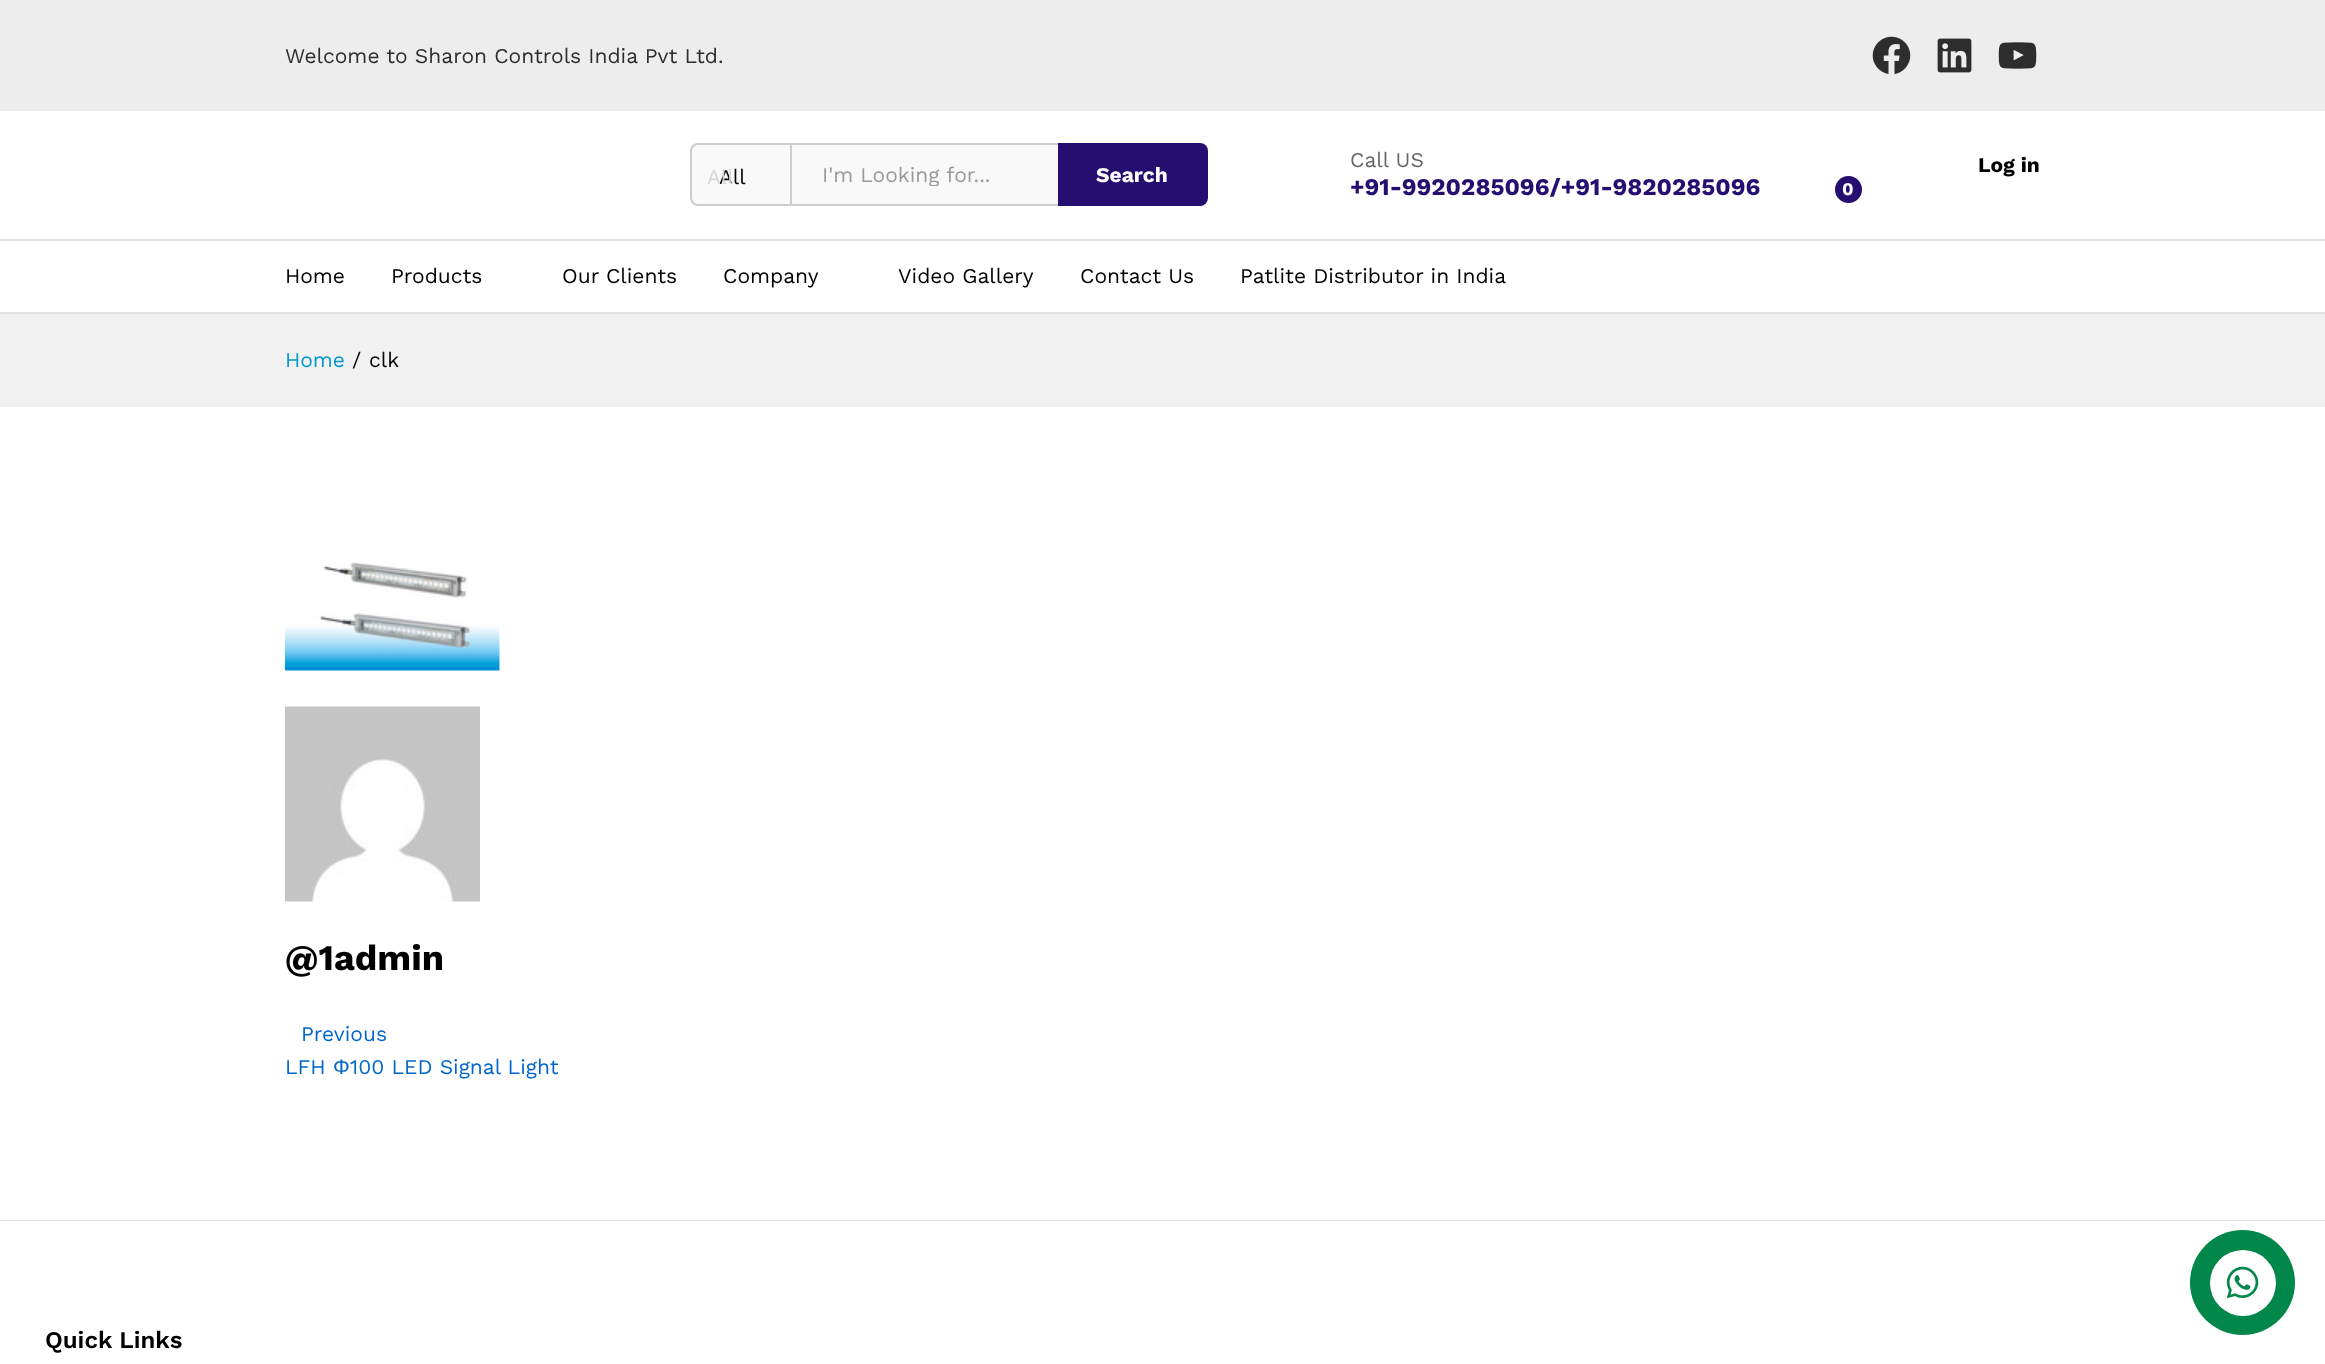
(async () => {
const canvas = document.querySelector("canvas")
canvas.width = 2325
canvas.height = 1364
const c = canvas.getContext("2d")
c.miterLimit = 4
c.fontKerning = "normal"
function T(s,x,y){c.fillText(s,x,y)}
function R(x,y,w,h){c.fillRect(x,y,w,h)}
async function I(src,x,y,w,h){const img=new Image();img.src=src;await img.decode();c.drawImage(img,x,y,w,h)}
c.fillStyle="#fff"
R(0,0,2325,1364)
c.fillStyle="#ededed"
R(0,0,2325,111)
c.font="21px Work Sans"
c.fillStyle="#2d2d2d"
T("Welcome to Sharon Controls India Pvt Ltd.",285,63)
await I("1.png",1872,36,39,38)
await I("2.png",1937,38,35,35)
await I("3.png",1998,42,39,27)
c.fillStyle="#f9f9f9"
c.beginPath()
c.roundRect(691,144,100,61,[7,0,0,7])
c.fill()
c.strokeStyle="#ccc"
c.lineWidth=2
c.stroke()
c.fillStyle="#000"
T("All",719,184)
c.fillStyle="#d6d6d6"
T("All",707,184)
c.fillStyle="#f9f9f9"
R(792,145,266,59)
c.fillStyle="#ccc"
R(792,143,266,2)
R(792,204,266,2)
c.save()
c.beginPath()
c.rect(822,162,206,24)
c.clip()
c.fillStyle="#999"
T("I'm Looking for...",822,182)
c.restore()
c.fillStyle="#240e70"
c.beginPath()
c.roundRect(1058,143,150,63,[0,8,8,0])
c.fill()
c.font="bold 21px Work Sans"
c.fillStyle="#fff"
T("Search",1096,182)
c.font="21px Work Sans"
c.fillStyle="#666"
T("Call US",1350,167)
c.font="bold 24px Work Sans"
c.fillStyle="#240e70"
T("+91-9920285096/+91-9820285096",1350,195)
c.font="bold 21px Work Sans"
c.fillStyle="#000"
T("Log in",1978,172)
c.fillStyle="#240e70"
c.beginPath()
c.arc(1848.5,189.5,13.5,0,7)
c.fill()
c.font="bold 18px Work Sans"
c.fillStyle="#fff"
T("0",1842,195)
c.fillStyle="#e1e1e1"
R(0,239,2325,2)
R(0,312,2325,2)
c.font="21px Work Sans"
c.fillStyle="#000"
T("Home",285,283)
T("Products",391,283)
T("Our Clients",562,283)
T("Company",723,283)
T("Video Gallery",898,283)
T("Contact Us",1080,283)
T("Patlite Distributor in India",1240,283)
c.fillStyle="#f1f1f1"
R(0,314,2325,93)
c.fillStyle="#09c"
T("Home",285,367)
c.fillStyle="#000"
T("/",352,367)
T("clk",369,367)
await I("4.png",285,562,215,109)
await I("5.png",285,706,195,196)
c.font="bold 36px Work Sans"
T("@1admin",285,970)
c.font="21px Work Sans"
c.fillStyle="#06c"
T("Previous",301,1041)
T("LFH",285,1074)
c.font="21px Liberation Sans"
T("Φ",333,1074)
c.font="21px Work Sans"
T("100 LED Signal Light",350,1074)
c.fillStyle="#e1e1e1"
R(0,1220,2325,1)
c.font="600 24px Work Sans"
c.fillStyle="#000"
T("Quick Links",45,1348)
c.fillStyle="#008749"
c.beginPath()
c.arc(2242.5,1282.5,52.5,0,7)
c.fill()
c.fillStyle="#fff"
c.beginPath()
c.arc(2243,1283,33,0,7)
c.fill()
await I("6.png",2226,1266,33,33)
})()
